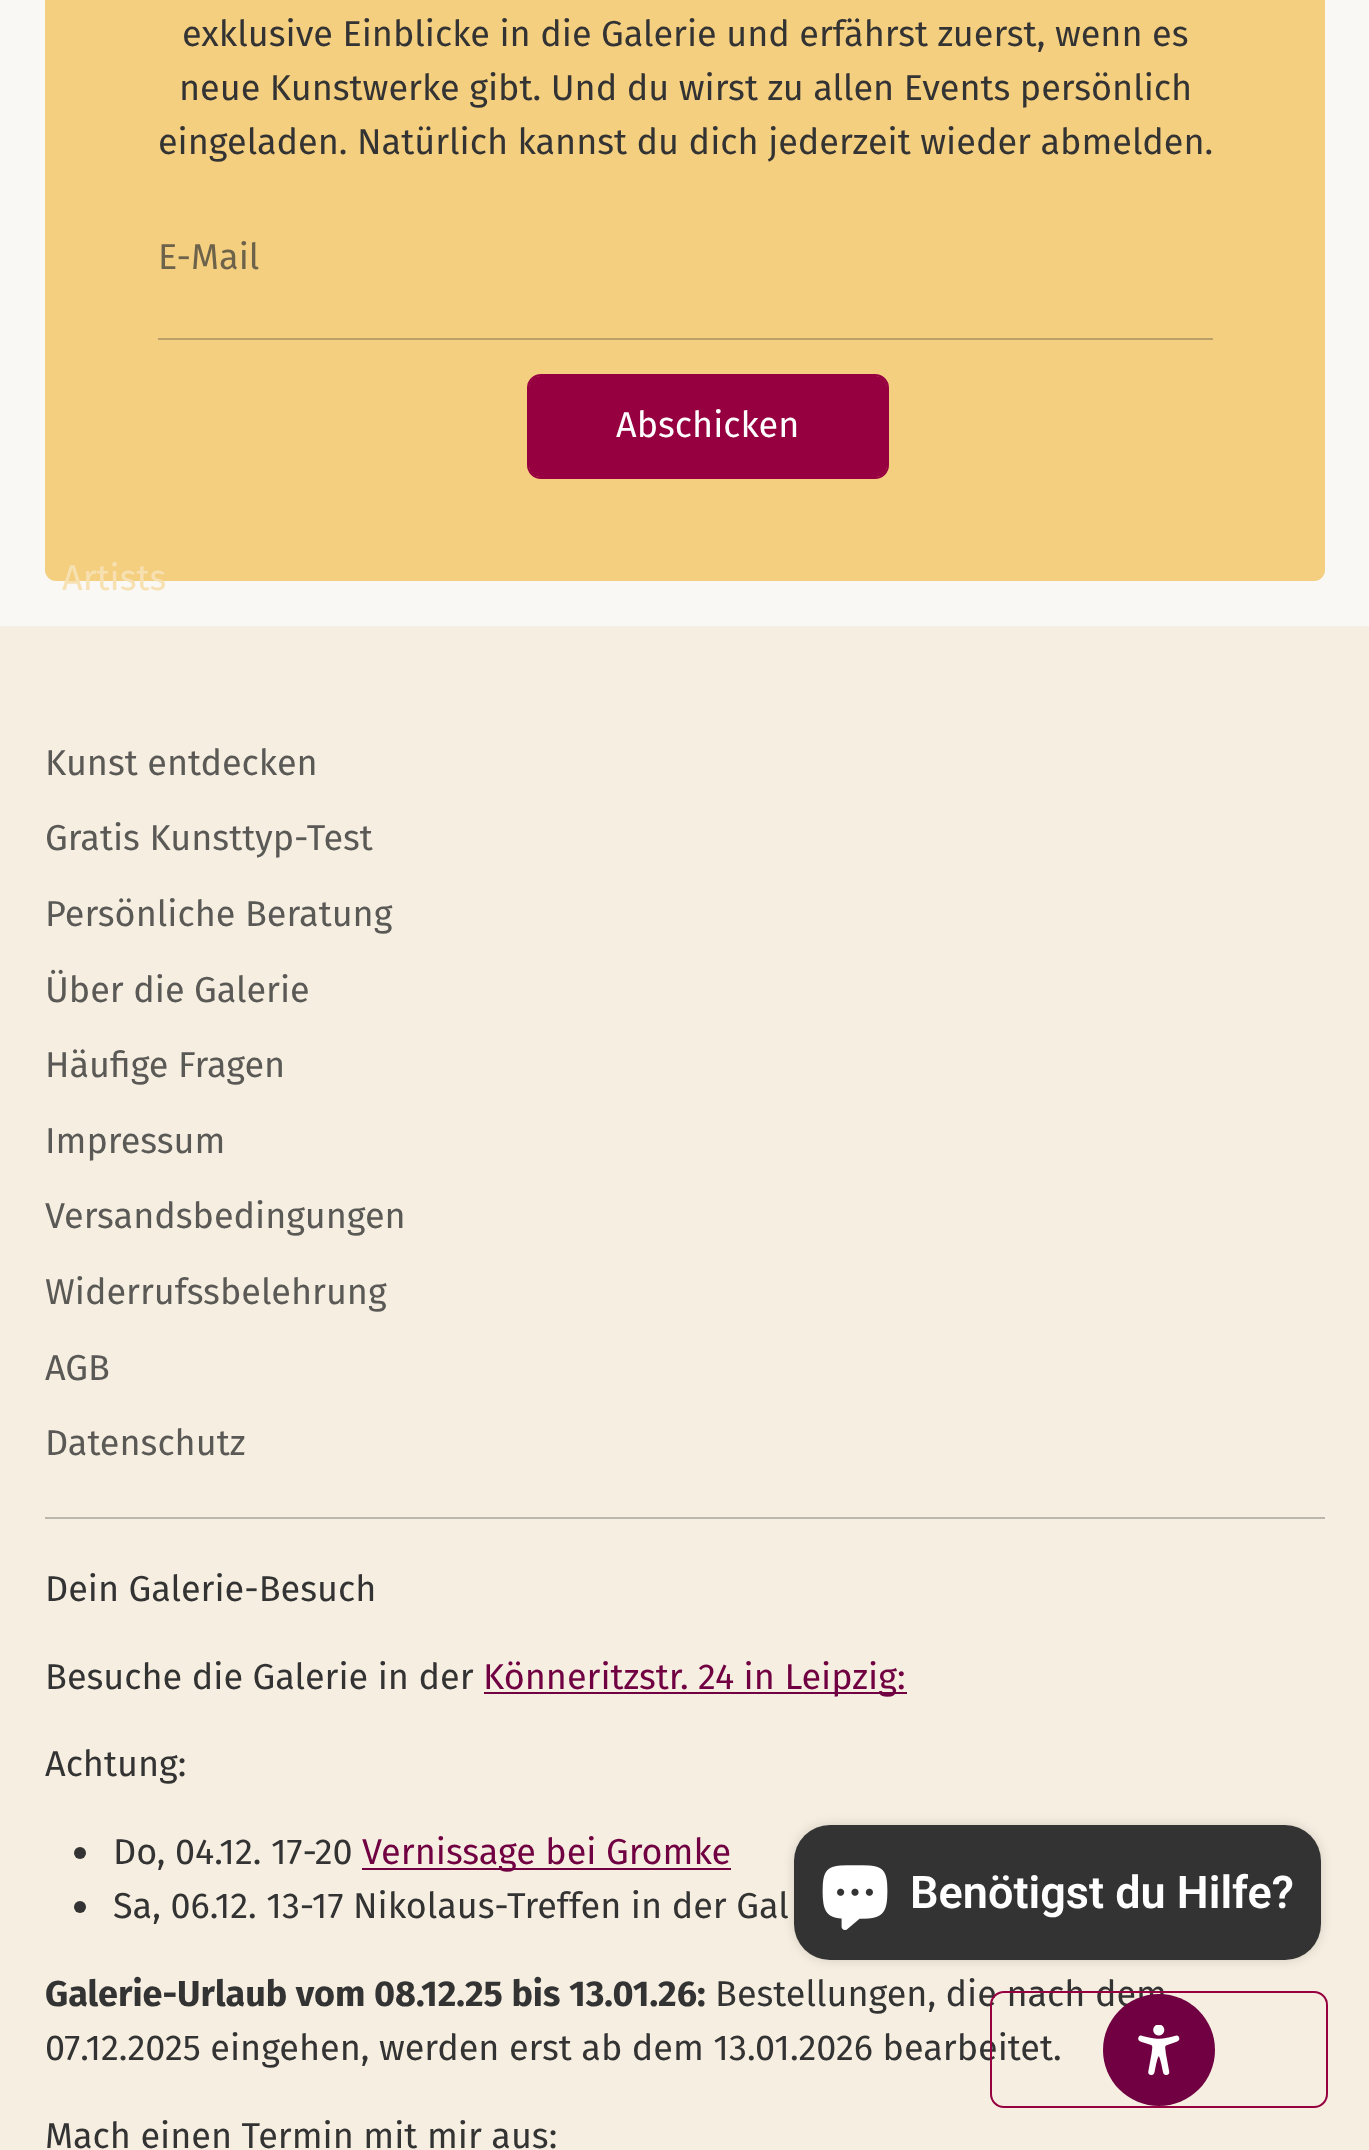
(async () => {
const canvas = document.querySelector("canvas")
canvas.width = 1369
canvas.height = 2150
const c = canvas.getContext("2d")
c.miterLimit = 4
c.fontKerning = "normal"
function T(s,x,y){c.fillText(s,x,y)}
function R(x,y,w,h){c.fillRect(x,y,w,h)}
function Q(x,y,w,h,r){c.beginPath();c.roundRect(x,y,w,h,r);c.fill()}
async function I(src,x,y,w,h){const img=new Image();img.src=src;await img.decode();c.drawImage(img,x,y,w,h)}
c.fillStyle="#faf8f4"
R(0,0,1369,2150)
c.fillStyle="#f4cf80"
Q(45,-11,1280,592,11)
c.font="36px Fira Sans"
c.fillStyle="#333"
T("exklusive Einblicke in die Galerie und erfährst zuerst, wenn es",182,46)
T("neue Kunstwerke gibt. Und du wirst zu allen Events persönlich",179,100)
T("eingeladen. Natürlich kannst du dich jederzeit wieder abmelden.",158,154)
c.fillStyle="#baa069"
R(158,338,1055,2)
c.fillStyle="#6d624a"
T("E-Mail",158,269)
c.beginPath()
c.roundRect(528,375,360,103,13)
c.strokeStyle="#960040"
c.lineWidth=2
c.stroke()
c.fillStyle="#960040"
Q(529,376,358,101,11)
c.fillStyle="#fff"
T("Abschicken",616,437)
c.fillStyle="#f7e1b2"
T("Artists",62,590)
c.fillStyle="#f6efe1"
R(0,626,1369,1524)
c.fillStyle="#bcb7ad"
R(45,1517,1280,2)
c.fillStyle="#5a5956"
T("Kunst entdecken",45,775)
T("Gratis Kunsttyp-Test",45,850)
T("Persönliche Beratung",45,926)
T("Über die Galerie",45,1002)
T("Häufige Fragen",45,1077)
T("Impressum",45,1153)
T("Versandsbedingungen",45,1228)
T("Widerrufssbelehrung",45,1304)
T("AGB",45,1380)
T("Datenschutz",45,1455)
c.fillStyle="#333"
T("Dein Galerie-Besuch",45,1601)
T("Besuche die Galerie in der",45,1689)
c.fillStyle="#700041"
R(484,1692,423,2)
T("Könneritzstr. 24 in Leipzig:",483,1689)
c.fillStyle="#333"
T("Achtung:",45,1776)
c.beginPath()
c.arc(80,1853,6,0,7)
c.fill()
T("Do, 04.12. 17-20",113,1864)
c.fillStyle="#700041"
R(362,1868,369,2)
T("Vernissage bei Gromke",362,1864)
c.fillStyle="#333"
c.beginPath()
c.arc(80,1907,6,0,7)
c.fill()
T("Sa, 06.12. 13-17 Nikolaus-Treffen in der Gal",113,1918)
c.font="bold 36px Fira Sans"
T("Galerie-Urlaub vom 08.12.25 bis 13.01.26:",45,2006)
c.font="36px Fira Sans"
T("Bestellungen, die nach dem",715,2006)
T("07.12.2025 eingehen, werden erst ab dem 13.01.2026 bearbeitet.",45,2060)
T("Mach einen Termin mit mir aus:",45,2148)
c.fillStyle="#00000026"
c.filter="blur(5.5px)"
c.beginPath()
c.roundRect(794,1825,527,135,36)
c.fill()
c.filter="none"
c.fillStyle="#333"
Q(794,1825,527,135,36)
await I("1.png",822,1865,66,65)
c.font="600 45px Roboto"
c.fillStyle="#fff"
T("Benötigst du Hilfe?",910,1908)
c.beginPath()
c.roundRect(991,1992,336,115,13)
c.stroke()
c.fillStyle="#700041"
c.beginPath()
c.arc(1159,2050,56,0,7)
c.fill()
await I("2.png",1138,2025,42,51)
})()
